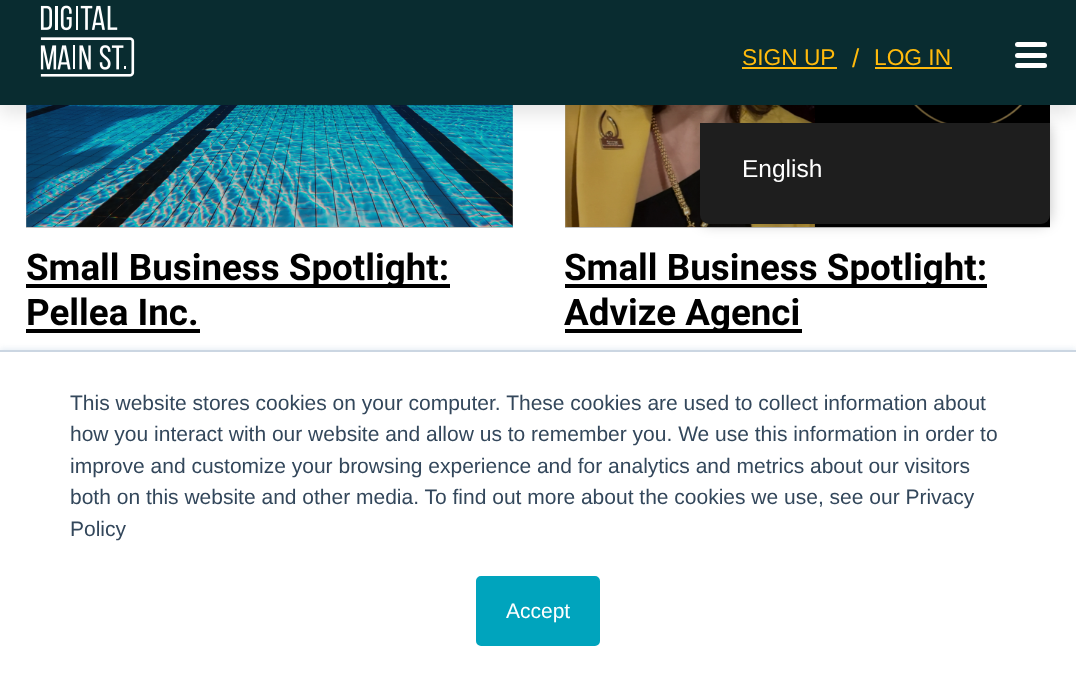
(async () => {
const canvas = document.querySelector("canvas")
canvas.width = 1076
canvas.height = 690
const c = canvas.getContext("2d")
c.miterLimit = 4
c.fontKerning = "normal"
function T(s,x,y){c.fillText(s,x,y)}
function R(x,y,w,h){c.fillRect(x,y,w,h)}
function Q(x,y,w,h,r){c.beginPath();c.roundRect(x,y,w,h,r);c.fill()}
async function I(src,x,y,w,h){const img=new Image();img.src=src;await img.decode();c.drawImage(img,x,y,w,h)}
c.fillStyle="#fff"
R(0,0,1076,690)
c.fillStyle="#bfbfbf"
R(565,105,485,123)
R(26,105,487,123)
await I("2.png",26,105,487,122)
await I("3.png",565,105,485,122)
c.fillStyle="#0000001a"
c.filter="blur(9px)"
c.beginPath()
c.rect(0,9,1076,105)
c.fill()
c.filter="none"
c.fillStyle="#092c30"
R(0,0,1076,105)
await I("1.png",40,5,95,72)
c.font="22.75px Liberation Sans"
c.fillStyle="#ffba0c"
T("SIGN UP",742,65)
R(742,67,95,2)
c.font="26px Liberation Sans"
T("/",852,67)
c.font="22.75px Liberation Sans"
T("LOG IN",874,65)
R(875,67,77,2)
c.fillStyle="#fff"
Q(1015,42,32,5,2.5)
Q(1015,53,32,5,2.5)
Q(1015,63,32,5,2.5)
c.fillStyle="#00000040"
c.filter="blur(7px)"
c.beginPath()
c.roundRect(700,123,350,101,9)
c.fill()
c.filter="none"
c.fillStyle="#1e1e1e"
c.beginPath()
c.roundRect(700,123,350,101,[0,0,9,9])
c.fill()
c.font="24.5px Liberation Sans"
c.fillStyle="#fff"
T("English",742,177)
c.fillStyle="#000"
R(26,284,424,4)
c.font="bold 36.75px Roboto"
T("Small Business Spotlight:",26,280)
T("Pellea Inc.",26,325)
R(26,329,174,4)
R(565,284,422,4)
T("Small Business Spotlight:",564,280)
R(565,329,237,4)
T("Advize Agenci",564,325)
c.fillStyle="#eaf0f6"
c.filter="blur(2.5px)"
c.beginPath()
c.rect(0,348,1076,342)
c.fill()
c.filter="none"
c.fillStyle="#fff"
R(0,352,1076,338)
c.fillStyle="#cbd6e2"
R(0,350,1076,2)
c.font="21px Liberation Sans"
c.fillStyle="#33475b"
T("This website stores cookies on your computer. These cookies are used to collect information about",70,410)
T("how you interact with our website and allow us to remember you. We use this information in order to",70,441)
T("improve and customize your browsing experience and for analytics and metrics about our visitors",70,473)
T("both on this website and other media. To find out more about the cookies we use, see our Privacy",70,504)
T("Policy",70,536)
c.fillStyle="#00a4bd"
c.beginPath()
c.roundRect(477,577,122,68,4)
c.fill()
c.strokeStyle="#00a4bd"
c.lineWidth=2
c.stroke()
c.fillStyle="#fff"
T("Accept",506,618)
})()
